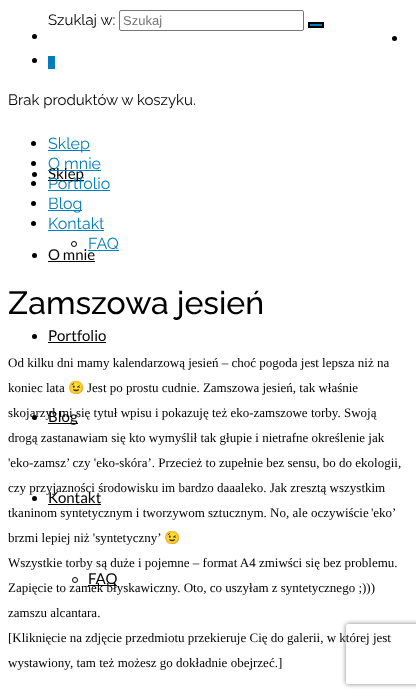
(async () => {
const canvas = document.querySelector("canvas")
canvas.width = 416
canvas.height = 698
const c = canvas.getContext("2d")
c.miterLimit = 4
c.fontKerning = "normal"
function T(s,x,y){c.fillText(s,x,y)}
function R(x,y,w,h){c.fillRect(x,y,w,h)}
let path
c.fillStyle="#fff"
R(0,0,416,698)
c.font="15px Raleway"
c.fillStyle="#000"
T("Szuklaj w:",48,25)
c.beginPath()
c.roundRect(119.5,10.5,184,20,1.5)
c.strokeStyle="#767676"
c.stroke()
c.font="13px Liberation Sans"
c.fillStyle="#757575"
T("Szukaj",123,25)
c.fillStyle="#007dbb"
c.beginPath()
c.rect(309,23,14,4)
c.fill()
c.strokeStyle="#000"
c.lineWidth=2
c.stroke()
c.fillStyle="#000"
c.beginPath()
c.arc(34.5,36.5,2.5,0,7)
c.fill()
c.beginPath()
c.arc(34.5,60.5,2.5,0,7)
c.fill()
c.fillStyle="#007dbb"
R(48,56,7,13)
c.font="15px Raleway"
c.fillStyle="#000"
T("Brak produktów w koszyku.",8,105)
c.beginPath()
c.arc(394.5,38.5,2.5,0,7)
c.fill()
c.beginPath()
c.arc(33.5,143.5,2.5,0,7)
c.fill()
c.fillStyle="#007dbb"
R(48,150,42,1)
c.font="16px Raleway"
T("Sklep",48,149)
c.fillStyle="#000"
c.beginPath()
c.arc(33.5,163.5,2.5,0,7)
c.fill()
c.fillStyle="#007dbb"
T("O mnie",48,169)
c.fillStyle="#000"
R(48,180,36,1)
c.font="15px Lato"
T("Sklep",48,179)
c.fillStyle="#007dbb"
R(48,170,53,1)
c.fillStyle="#000"
c.beginPath()
c.arc(33.5,183.5,2.5,0,7)
c.fill()
c.font="16px Raleway"
c.fillStyle="#007dbb"
T("Portfolio",48,189)
R(48,190,62,1)
c.fillStyle="#000"
c.beginPath()
c.arc(33.5,203.5,2.5,0,7)
c.fill()
c.fillStyle="#007dbb"
R(48,210,34,1)
T("Blog",48,209)
c.fillStyle="#000"
c.beginPath()
c.arc(33.5,223.5,2.5,0,7)
c.fill()
c.fillStyle="#007dbb"
T("Kontakt",48,229)
R(48,230,56,1)
c.beginPath()
c.arc(74,244,2.5,0,7)
c.lineWidth=1
c.stroke()
T("FAQ",88,249)
c.font="15px Lato"
c.fillStyle="#000"
T("O mnie",48,260)
c.fillStyle="#007dbb"
R(88,250,31,1)
c.fillStyle="#000"
c.beginPath()
c.arc(34.5,174.5,2.5,0,7)
c.fill()
c.beginPath()
c.arc(34.5,255.5,2.5,0,7)
c.fill()
R(48,261,47,1)
c.beginPath()
c.arc(34.5,336.5,2.5,0,7)
c.fill()
T("Portfolio",48,341)
R(48,342,58,1)
c.beginPath()
c.arc(34.5,417.5,2.5,0,7)
c.fill()
R(48,423,30,1)
T("Blog",48,422)
c.beginPath()
c.arc(34.5,498.5,2.5,0,7)
c.fill()
T("Kontakt",48,503)
R(48,504,53,1)
c.beginPath()
c.arc(75,580,2.5,0,7)
c.stroke()
R(88,585,29,1)
T("FAQ",88,584)
c.font="500 32px Raleway"
T("Zamszowa jesień",8,314)
c.font="13px Liberation Serif"
T("Od kilku dni mamy kalendarzową jesień – choć pogoda jest lepsza niż na",8,367)
T("koniec lata",8,392)
c.font="13px Noto Color Emoji"
T("😉",68,392)
c.font="13px Liberation Serif"
T("Jest po prostu cudnie. Zamszowa jesień, tak właśnie",87,392)
T("skojarzył mi się tytuł wpisu i pokazuję też eko-zamszowe torby. Swoją",8,417)
T("drogą zastanawiam się kto wymyślił tak głupie i nietrafne określenie jak",8,442)
T("'eko-zamsz’ czy 'eko-skóra’. Przecież to zupełnie bez sensu, bo do ekologii,",8,467)
T("czy przyjazności środowisku im bardzo daaaleko. Jak zresztą wszystkim",8,492)
T("tkaninom syntetycznym i tworzywom sztucznym. No, ale",8,517)
c.wordSpacing="-1px"
T("oczywiście 'eko’",311,517)
c.wordSpacing="0px"
T("brzmi lepiej niż 'syntetyczny’",8,542)
c.font="13px Noto Color Emoji"
T("😉",164,542)
c.font="13px Liberation Serif"
T("Wszystkie torby są duże i pojemne – format A4 zmiwści się bez problemu.",8,567)
T("Zapięcie to zamek błyskawiczny. Oto, co uszyłam z syntetycznego ;)))",8,592)
T("zamszu alcantara.",8,617)
T("[Kliknięcie na zdjęcie przedmiotu przekieruje Cię do galerii, w której jest",8,642)
T("wystawiony, tam też możesz go dokładnie obejrzeć.]",8,667)
c.save()
path = new Path2D("M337 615h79v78h-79zm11 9h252c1 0 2 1 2 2v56c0 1-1 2-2 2h-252c-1 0-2-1-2-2v-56c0-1 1-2 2-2z")
c.clip(path,"evenodd")
c.fillStyle="#808080"
c.filter="blur(2.5px)"
c.beginPath()
c.roundRect(346,624,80,60,2)
c.fill()
c.filter="none"
c.restore()
})()
